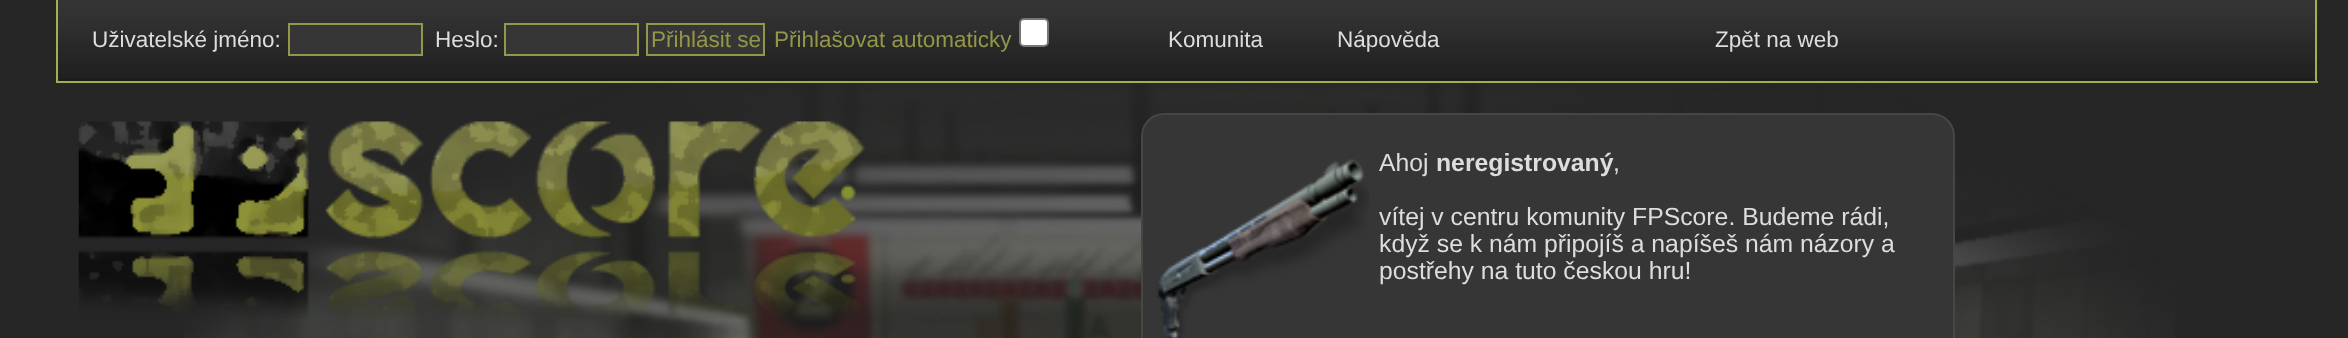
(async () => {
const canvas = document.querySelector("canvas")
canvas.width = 2348
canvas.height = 338
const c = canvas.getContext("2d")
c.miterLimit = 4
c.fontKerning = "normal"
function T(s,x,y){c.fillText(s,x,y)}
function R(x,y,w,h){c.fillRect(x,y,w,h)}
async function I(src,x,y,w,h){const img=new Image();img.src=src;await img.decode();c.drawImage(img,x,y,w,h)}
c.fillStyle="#262626"
R(0,0,2348,338)
await I("1.png",184,83,1991,255)
c.fillStyle="#1b1b1b"
R(59,78,2256,3)
await I("2.png",58,0,2260,79)
c.fillStyle="#a1b051"
R(2315,0,2,83)
R(56,81,2262,2)
R(56,0,2,83)
c.font="22.5px Liberation Sans"
c.fillStyle="#ddd"
T("Uživatelské jméno:",92,47)
c.fillStyle="#363636"
c.beginPath()
c.rect(289,24,133,31)
c.fill()
c.strokeStyle="#949748"
c.lineWidth=2
c.stroke()
c.fillStyle="#ddd"
T("Heslo:",435,47)
c.fillStyle="#363636"
c.beginPath()
c.rect(505,24,133,31)
c.fill()
c.stroke()
c.beginPath()
c.rect(647,24,117,31)
c.fill()
c.stroke()
c.fillStyle="#949748"
T("Přihlásit se",651,47)
T("Přihlašovat automaticky",774,47)
c.fillStyle="#fff"
c.beginPath()
c.roundRect(1020,19,28,27,4)
c.fill()
c.strokeStyle="#767676"
c.stroke()
c.fillStyle="#ddd"
T("Komunita",1168,47)
T("Nápověda",1337,47)
T("Zpět na web",1715,47)
await I("3.png",78,121,787,198)
c.fillStyle="#363636"
c.beginPath()
c.roundRect(1142,114,812,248,22)
c.fill()
c.strokeStyle="#464646"
c.stroke()
await I("4.png",1156,159,213,179)
c.font="24.75px Liberation Sans"
c.fillStyle="#ddd"
T("Ahoj",1379,171)
c.font="bold 24.75px Liberation Sans"
T("neregistrovaný",1436,171)
c.font="24.75px Liberation Sans"
T(",",1613,171)
T("vítej v centru komunity FPScore. Budeme rádi,",1379,225)
T("když se k nám připojíš a napíšeš nám názory a",1379,252)
T("postřehy na tuto českou hru!",1379,279)
})()
